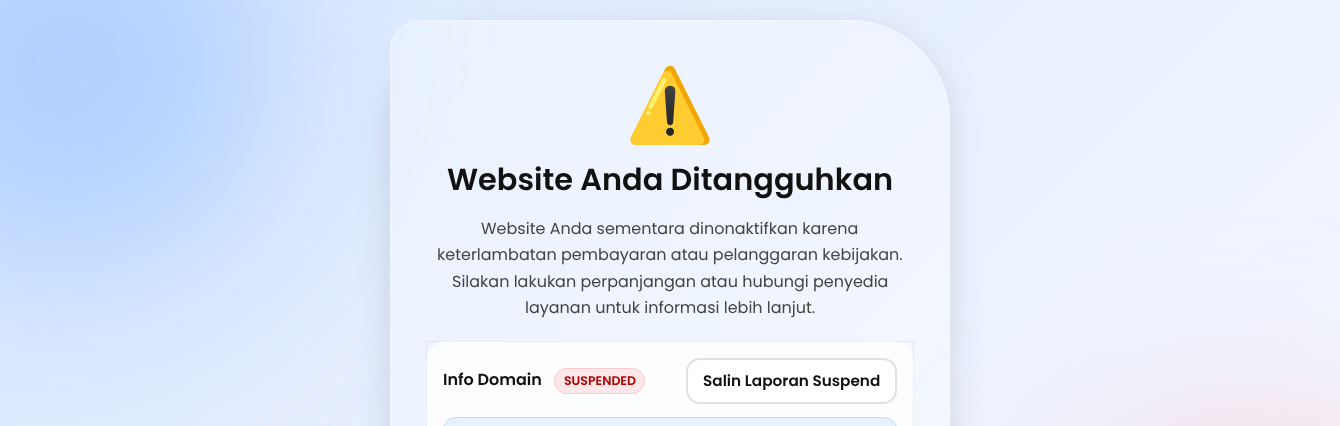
(async () => {
const canvas = document.querySelector("canvas")
canvas.width = 1340
canvas.height = 426
const c = canvas.getContext("2d")
c.miterLimit = 4
c.fontKerning = "normal"
function T(s,x,y){c.fillText(s,x,y)}
function R(x,y,w,h){c.fillRect(x,y,w,h)}
function Q(x,y,w,h,r){c.beginPath();c.roundRect(x,y,w,h,r);c.fill()}
let gradient, path
c.fillStyle="#fff"
R(0,0,1340,426)
gradient = c.createLinearGradient(157,-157,1183,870)
gradient.addColorStop(0,"#dbe9ff")
gradient.addColorStop(1,"#f6f8ff")
c.fillStyle = gradient
R(0,0,1340,426)
c.fillStyle="#80b3ff80"
c.filter="blur(100px)"
c.beginPath()
c.roundRect(-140,-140,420,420,210)
c.fill()
c.filter="none"
c.save()
path = new Path2D("M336 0h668v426h-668zm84 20h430c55 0 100 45 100 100v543c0 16.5-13.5 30-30 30h-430c-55 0-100-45-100-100v-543c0-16.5 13.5-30 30-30z")
c.clip(path,"evenodd")
c.fillStyle="#0000001f"
c.filter="blur(17.5px)"
c.beginPath()
c.roundRect(390,30,560,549,100)
c.fill()
c.filter="none"
c.restore()
c.fillStyle="#ffb3b380"
c.filter="blur(100px)"
c.beginPath()
c.roundRect(1060,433,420,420,210)
c.fill()
c.filter="none"
c.fillStyle="#ffffff52"
path = new Path2D("M420 20h430c55 0 100 45 100 100v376c0 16.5-13.5 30-30 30h-430c-55 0-100-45-100-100v-376c0-16.5 13.5-30 30-30z")
c.fill(path)
path = new Path2D("M420 20.5h430c55 0 99.5 44.5 99.5 99.5v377c0 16.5-13 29.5-29.5 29.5h-430c-55 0-99.5-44.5-99.5-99.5v-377c0-16.5 13-29.5 29.5-29.5z")
c.strokeStyle="#ffffff73"
c.stroke(path)
c.font="72px Noto Color Emoji"
c.fillStyle="#ff4747"
T("⚠️",625,130)
c.font="600 30.4px Poppins"
c.fillStyle="#111"
T("Website Anda Ditangguhkan",447,190)
c.font="16px Poppins"
c.fillStyle="#444"
T("Website Anda sementara dinonaktifkan karena",481,234)
T("keterlambatan pembayaran atau pelanggaran kebijakan.",437,260)
T("Silakan lakukan perpanjangan atau hubungi penyedia",452,287)
T("layanan untuk informasi lebih lanjut.",525,313)
c.fillStyle="#ffffffc7"
Q(426,341,488,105,20)
c.strokeStyle="#0000000f"
c.strokeRect(426.5,341.5,487,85)
c.font="600 16px Poppins"
c.fillStyle="#111"
T("Info Domain",443,385)
c.fillStyle="#fce7e9"
Q(554,368,91,26,13)
c.beginPath()
c.roundRect(554.5,368.5,90,25,12.5)
c.strokeStyle="#ff47472e"
c.stroke()
c.font="600 12.5px Poppins"
c.fillStyle="#b30000"
T("SUSPENDED",564,385)
c.fillStyle="#fffffffa"
Q(686,358,211,46,14)
c.beginPath()
c.roundRect(687,359,209,44,13)
c.strokeStyle="#0000001f"
c.lineWidth=2
c.stroke()
c.font="600 15.25px Poppins"
c.fillStyle="#111"
T("Salin Laporan Suspend",703,386)
c.fillStyle="#e8f1ff"
Q(443,417,454,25,16)
c.beginPath()
c.roundRect(443.5,417.5,453,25,15.5)
c.strokeStyle="#0066ff26"
c.lineWidth=1
c.stroke()
})()
